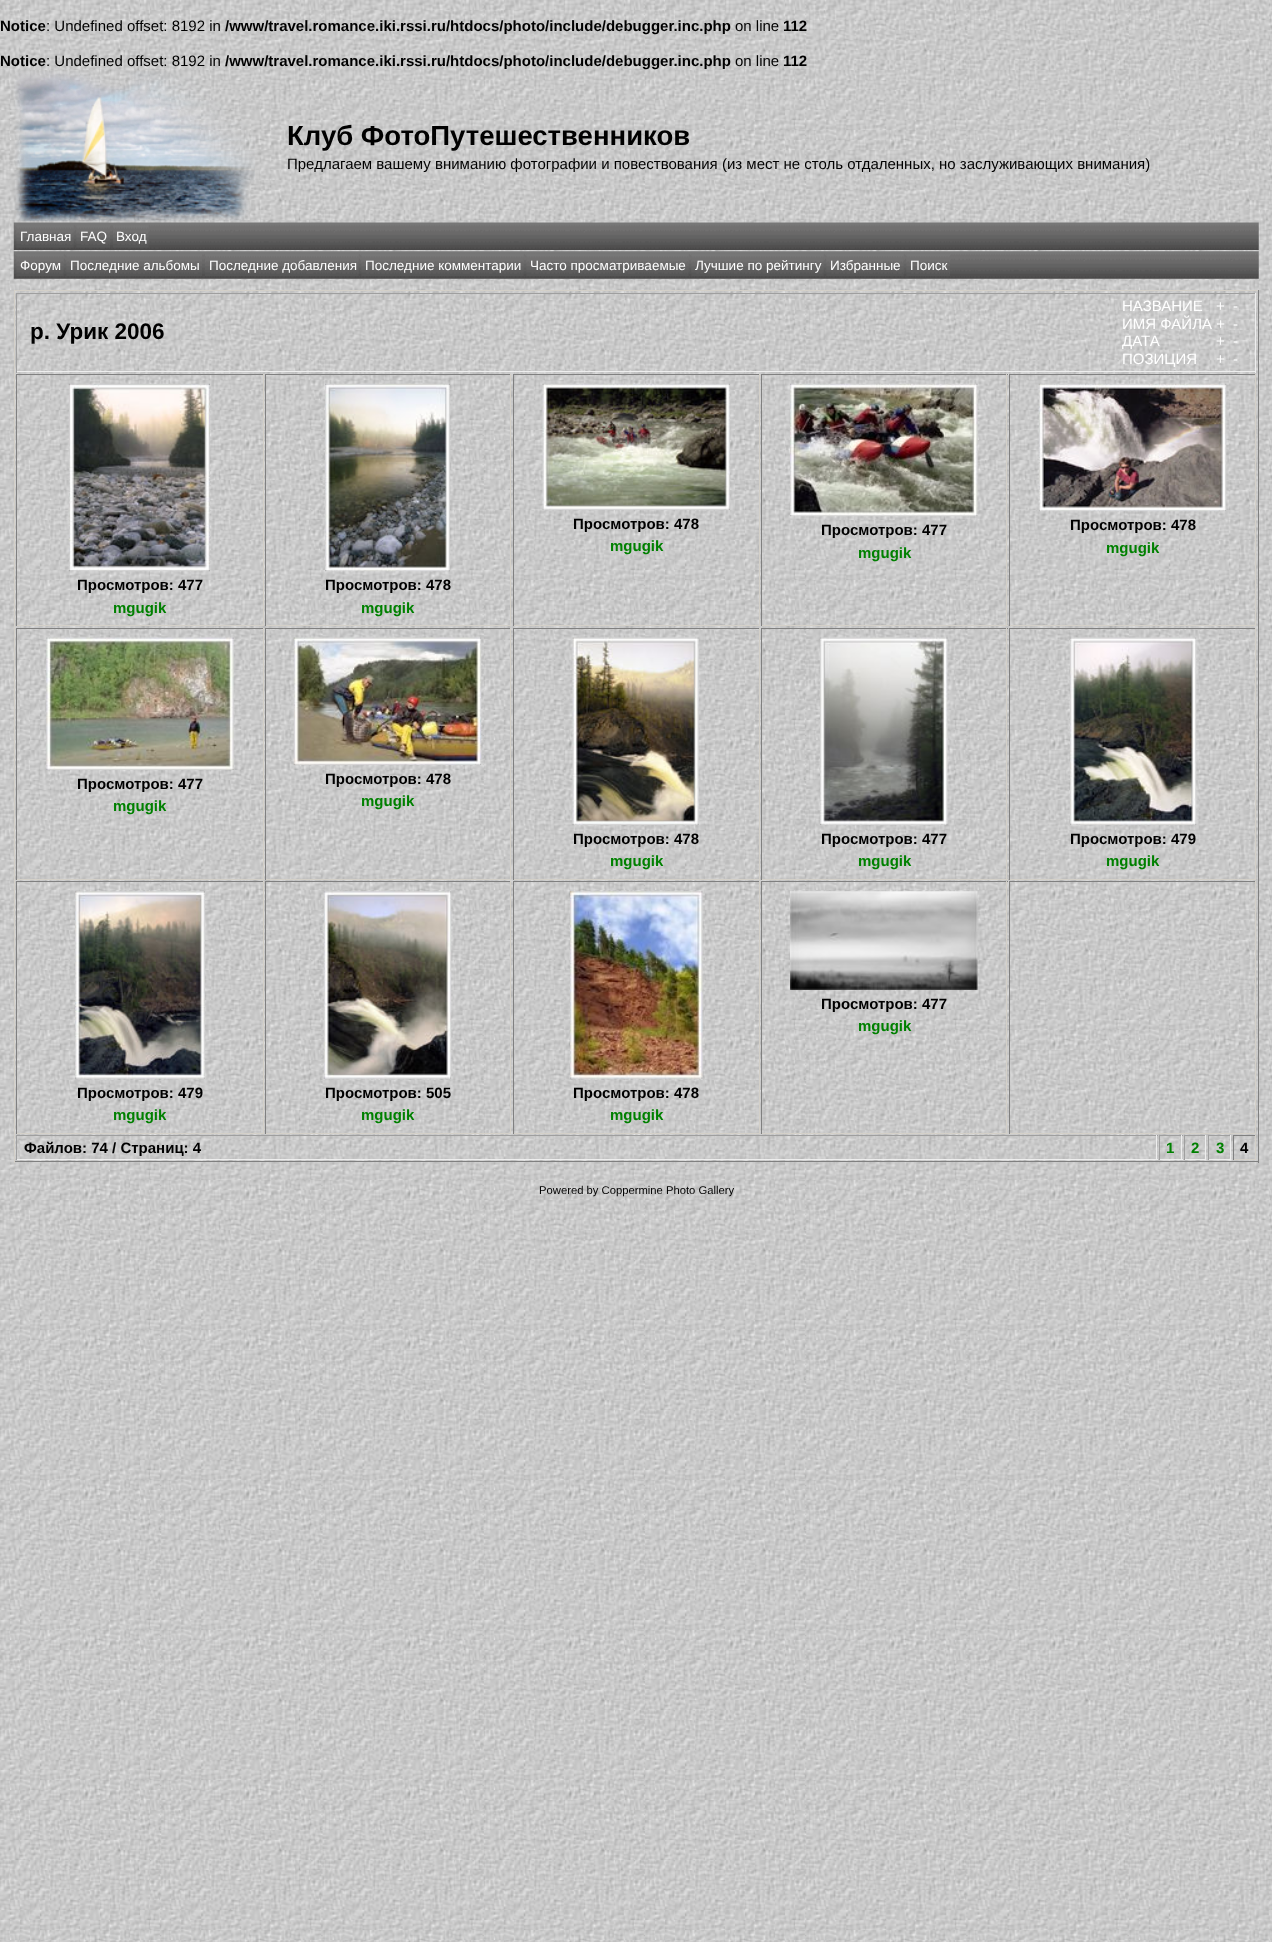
(async () => {
const canvas = document.querySelector("canvas")
canvas.width = 1272
canvas.height = 1942
const c = canvas.getContext("2d")
c.miterLimit = 4
c.fontKerning = "normal"
function T(s,x,y){c.fillText(s,x,y)}
function R(x,y,w,h){c.fillRect(x,y,w,h)}
async function I(src,x,y,w,h){const img=new Image();img.src=src;await img.decode();c.drawImage(img,x,y,w,h)}
c.fillStyle="#fff"
R(0,0,1272,1942)
await I("1.png",0,0,1272,1942)
c.font="bold 15px Liberation Sans"
c.fillStyle="#000"
T("Notice",0,31)
c.font="15px Liberation Sans"
T(": Undefined offset: 8192 in",46,31)
c.font="bold 15px Liberation Sans"
T("/www/travel.romance.iki.rssi.ru/htdocs/photo/include/debugger.inc.php",225,31)
c.font="15px Liberation Sans"
T("on line",735,31)
c.font="bold 15px Liberation Sans"
T("112",783,31)
T("Notice",0,66)
c.font="15px Liberation Sans"
T(": Undefined offset: 8192 in",46,66)
c.font="bold 15px Liberation Sans"
T("/www/travel.romance.iki.rssi.ru/htdocs/photo/include/debugger.inc.php",225,66)
c.font="15px Liberation Sans"
T("on line",735,66)
c.font="bold 15px Liberation Sans"
T("112",783,66)
await I("2.png",14,71,241,151)
c.font="bold 27.5px Liberation Sans"
T("Клуб ФотоПутешественников",287,145)
c.font="15px Liberation Sans"
T("Предлагаем вашему вниманию фотографии и повествования (из мест не столь отдаленных, но заслуживающих внимания)",287,169)
await I("3.png",13,222,1246,28)
await I("4.png",16,225,58,23)
c.font="13.5px Liberation Sans"
c.fillStyle="#fff"
T("Главная",20,241)
await I("5.png",76,225,34,23)
T("FAQ",80,241)
await I("6.png",113,225,36,23)
T("Вход",116,241)
await I("7.png",13,251,1246,28)
await I("8.png",16,254,48,22)
T("Форум",20,270)
await I("9.png",66,254,136,22)
T("Последние альбомы",70,270)
await I("10.png",205,254,154,22)
T("Последние добавления",209,270)
await I("11.png",361,254,163,22)
T("Последние комментарии",365,270)
await I("12.png",526,254,163,22)
T("Часто просматриваемые",530,270)
await I("13.png",691,254,133,22)
T("Лучшие по рейтингу",695,270)
await I("14.png",826,254,78,22)
T("Избранные",830,270)
await I("15.png",906,254,44,22)
T("Поиск",910,270)
c.fillStyle="#d4d0c8"
R(14,290,1245,1)
c.fillStyle="#808080"
R(1258,290,1,873)
R(14,1161,1245,1)
c.fillStyle="#d4d0c8"
R(14,290,1,873)
c.fillStyle="#9f9f9f"
R(16,293,1240,1)
c.fillStyle="#eee"
R(1255,293,1,80)
R(16,371,1240,1)
c.fillStyle="#9f9f9f"
R(16,293,1,80)
c.font="bold 22.5px Liberation Sans"
c.fillStyle="#000"
T("р. Урик 2006",30,339)
c.font="15px Liberation Sans"
c.fillStyle="#fff"
T("НАЗВАНИЕ",1122,311)
T("+",1216,311)
T("-",1233,311)
T("ИМЯ ФАЙЛА +",1122,329)
T("-",1233,329)
T("ДАТА",1122,346)
T("+",1216,346)
T("-",1233,346)
T("ПОЗИЦИЯ",1122,364)
T("+",1216,364)
T("-",1233,364)
c.fillStyle="#808080"
R(513,374,247,1)
c.fillStyle="#d4d0c8"
R(759,374,1,252)
R(513,625,247,1)
c.fillStyle="#808080"
R(513,374,1,252)
await I("16.png",542,383,188,127)
c.font="bold 15px Liberation Sans"
c.fillStyle="#000"
T("Просмотров: 478",573,529)
c.fillStyle="#008000"
T("mgugik",610,551)
c.fillStyle="#808080"
R(761,374,247,1)
c.fillStyle="#d4d0c8"
R(1006,374,1,252)
R(761,625,247,1)
c.fillStyle="#808080"
R(761,374,1,252)
await I("17.png",790,383,188,134)
c.fillStyle="#000"
T("Просмотров: 477",821,535)
c.fillStyle="#008000"
T("mgugik",858,558)
c.fillStyle="#808080"
R(1009,374,247,1)
c.fillStyle="#d4d0c8"
R(1255,374,1,252)
R(1009,625,247,1)
c.fillStyle="#808080"
R(1009,374,1,252)
await I("18.png",1038,383,189,129)
c.fillStyle="#000"
T("Просмотров: 478",1070,530)
c.fillStyle="#008000"
T("mgugik",1106,553)
c.fillStyle="#808080"
R(16,374,248,1)
c.fillStyle="#d4d0c8"
R(263,374,1,252)
R(16,625,248,1)
c.fillStyle="#808080"
R(16,374,1,252)
await I("19.png",68,383,142,189)
c.fillStyle="#000"
T("Просмотров: 477",77,590)
c.fillStyle="#008000"
T("mgugik",113,613)
c.fillStyle="#808080"
R(265,374,246,1)
c.fillStyle="#d4d0c8"
R(510,374,1,252)
R(265,625,246,1)
c.fillStyle="#808080"
R(265,374,1,252)
await I("20.png",325,383,125,189)
c.fillStyle="#000"
T("Просмотров: 478",325,590)
c.fillStyle="#008000"
T("mgugik",361,613)
c.fillStyle="#808080"
R(16,628,248,1)
c.fillStyle="#d4d0c8"
R(263,628,1,252)
R(16,879,248,1)
c.fillStyle="#808080"
R(16,628,1,252)
await I("21.png",46,637,188,133)
c.fillStyle="#000"
T("Просмотров: 477",77,789)
c.fillStyle="#008000"
T("mgugik",113,811)
c.fillStyle="#808080"
R(265,628,246,1)
c.fillStyle="#d4d0c8"
R(510,628,1,252)
R(265,879,246,1)
c.fillStyle="#808080"
R(265,628,1,252)
await I("22.png",293,637,189,128)
c.fillStyle="#000"
T("Просмотров: 478",325,784)
c.fillStyle="#008000"
T("mgugik",361,806)
c.fillStyle="#808080"
R(513,628,247,1)
c.fillStyle="#d4d0c8"
R(759,628,1,252)
R(513,879,247,1)
c.fillStyle="#808080"
R(513,628,1,252)
await I("23.png",572,637,127,188)
c.fillStyle="#000"
T("Просмотров: 478",573,844)
c.fillStyle="#008000"
T("mgugik",610,866)
c.fillStyle="#808080"
R(761,628,247,1)
c.fillStyle="#d4d0c8"
R(1006,628,1,252)
R(761,879,247,1)
c.fillStyle="#808080"
R(761,628,1,252)
await I("24.png",820,637,128,188)
c.fillStyle="#000"
T("Просмотров: 477",821,844)
c.fillStyle="#008000"
T("mgugik",858,866)
c.fillStyle="#808080"
R(1009,628,247,1)
c.fillStyle="#d4d0c8"
R(1255,628,1,252)
R(1009,879,247,1)
c.fillStyle="#808080"
R(1009,628,1,252)
await I("25.png",1070,637,127,188)
c.fillStyle="#000"
T("Просмотров: 479",1070,844)
c.fillStyle="#008000"
T("mgugik",1106,866)
c.fillStyle="#808080"
R(761,881,247,1)
c.fillStyle="#d4d0c8"
R(1006,881,1,253)
R(761,1133,247,1)
c.fillStyle="#808080"
R(761,881,1,253)
await I("26.png",790,891,188,99)
c.fillStyle="#000"
T("Просмотров: 477",821,1009)
c.fillStyle="#008000"
T("mgugik",858,1031)
c.fillStyle="#808080"
R(1009,881,247,1)
c.fillStyle="#d4d0c8"
R(1255,881,1,253)
R(1009,1133,247,1)
c.fillStyle="#808080"
R(1009,881,1,253)
R(16,881,248,1)
c.fillStyle="#d4d0c8"
R(263,881,1,253)
R(16,1133,248,1)
c.fillStyle="#808080"
R(16,881,1,253)
await I("27.png",75,891,130,188)
c.fillStyle="#000"
T("Просмотров: 479",77,1098)
c.fillStyle="#008000"
T("mgugik",113,1120)
c.fillStyle="#808080"
R(265,881,246,1)
c.fillStyle="#d4d0c8"
R(510,881,1,253)
R(265,1133,246,1)
c.fillStyle="#808080"
R(265,881,1,253)
await I("28.png",323,891,129,188)
c.fillStyle="#000"
T("Просмотров: 505",325,1098)
c.fillStyle="#008000"
T("mgugik",361,1120)
c.fillStyle="#808080"
R(513,881,247,1)
c.fillStyle="#d4d0c8"
R(759,881,1,253)
R(513,1133,247,1)
c.fillStyle="#808080"
R(513,881,1,253)
await I("29.png",570,891,133,188)
c.fillStyle="#000"
T("Просмотров: 478",573,1098)
c.fillStyle="#008000"
T("mgugik",610,1120)
c.fillStyle="#9f9f9f"
R(16,1135,1142,1)
c.fillStyle="#eee"
R(1156,1135,1,25)
R(16,1159,1142,1)
c.fillStyle="#9f9f9f"
R(16,1135,1,25)
c.fillStyle="#000"
T("Файлов: 74 / Страниц: 4",24,1153)
c.fillStyle="#9f9f9f"
R(1159,1135,24,1)
c.fillStyle="#eee"
R(1181,1135,1,25)
R(1159,1159,24,1)
c.fillStyle="#9f9f9f"
R(1159,1135,1,25)
c.fillStyle="#008000"
T("1",1166,1153)
c.fillStyle="#9f9f9f"
R(1184,1135,22,1)
c.fillStyle="#eee"
R(1205,1135,1,25)
R(1184,1159,22,1)
c.fillStyle="#9f9f9f"
R(1184,1135,1,25)
c.fillStyle="#008000"
T("2",1191,1153)
c.fillStyle="#9f9f9f"
R(1208,1135,23,1)
c.fillStyle="#eee"
R(1230,1135,1,25)
R(1208,1159,23,1)
c.fillStyle="#9f9f9f"
R(1208,1135,1,25)
c.fillStyle="#008000"
T("3",1216,1153)
c.fillStyle="#808080"
R(1233,1135,23,1)
c.fillStyle="#d4d0c8"
R(1255,1135,1,25)
R(1233,1159,23,1)
c.fillStyle="#808080"
R(1233,1135,1,25)
c.fillStyle="#000"
T("4",1240,1153)
c.font="11.25px Liberation Sans"
T("Powered by Coppermine Photo Gallery",539,1194)
})()
